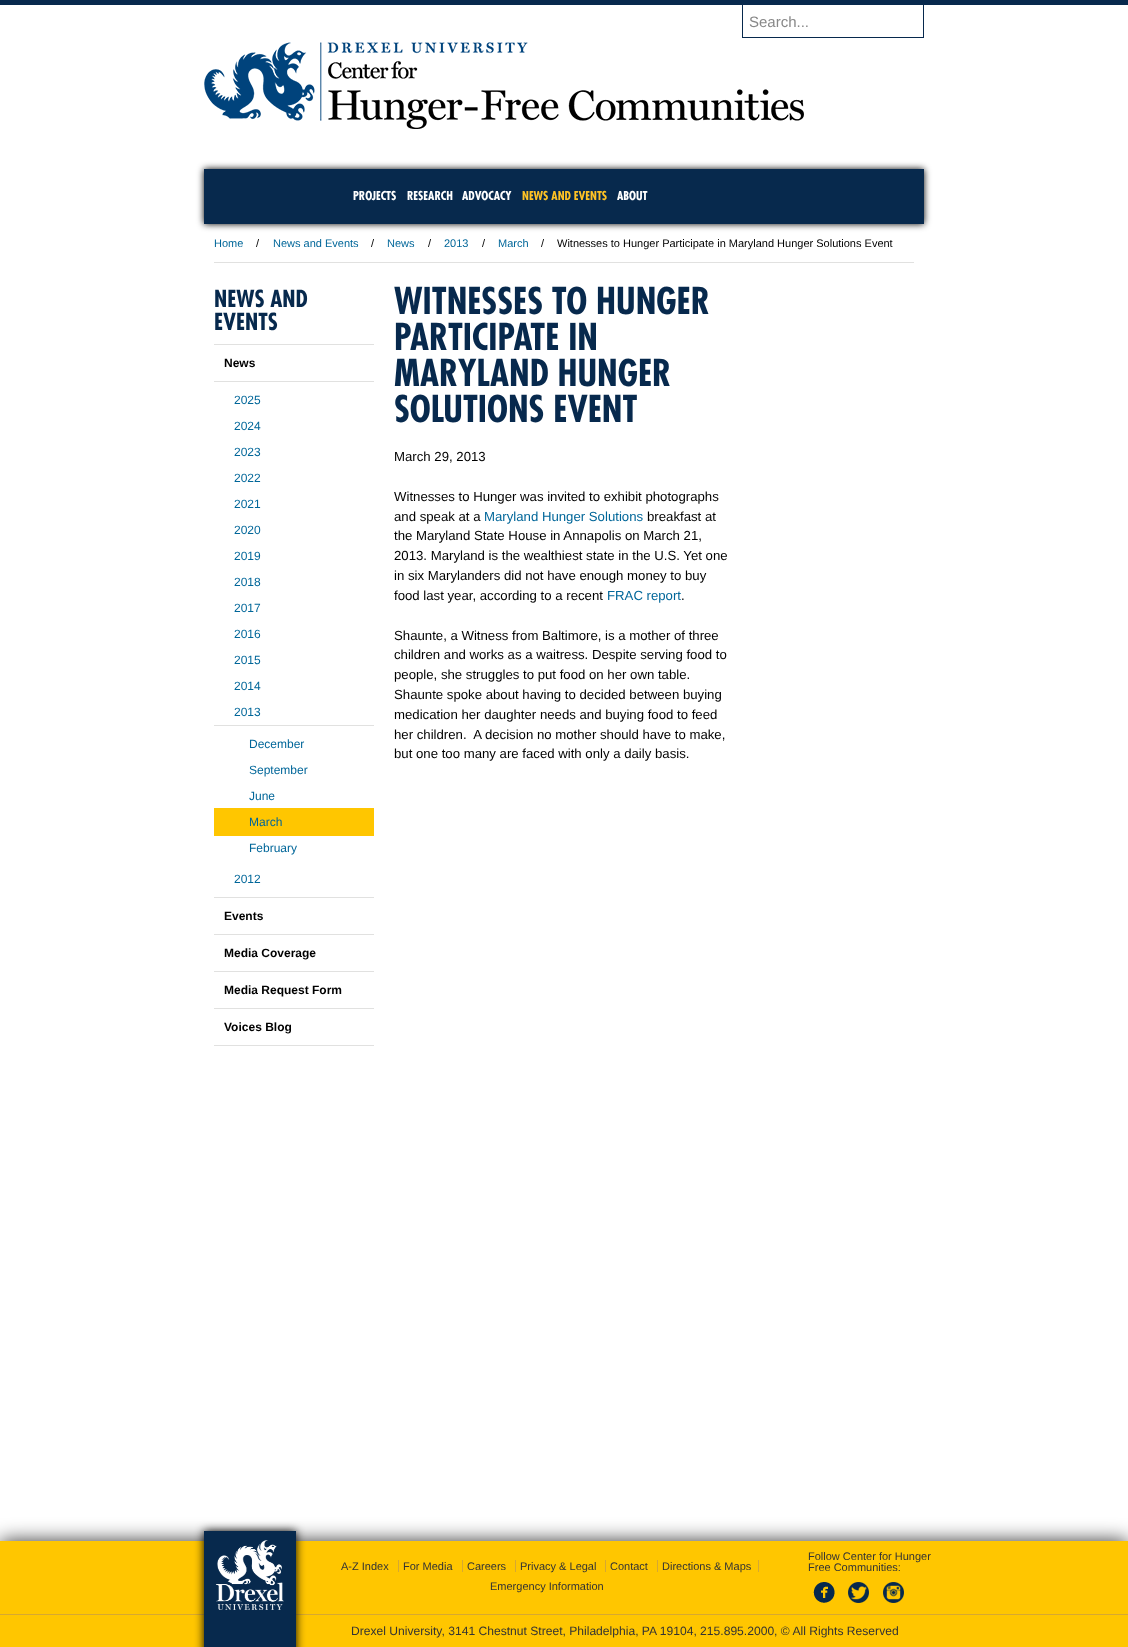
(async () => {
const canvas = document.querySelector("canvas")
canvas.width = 1128
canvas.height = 1647
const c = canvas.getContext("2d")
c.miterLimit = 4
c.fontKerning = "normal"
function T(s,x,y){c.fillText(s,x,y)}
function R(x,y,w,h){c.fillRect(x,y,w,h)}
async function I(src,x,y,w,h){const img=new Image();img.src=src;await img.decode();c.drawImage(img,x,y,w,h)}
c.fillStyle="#fff"
R(0,0,1128,1647)
c.fillStyle="#07294d"
R(0,0,1128,5)
R(742,5,182,33)
c.fillStyle="#fff"
R(743,5,180,32)
c.font="15px Liberation Sans"
c.fillStyle="#888"
T("Search...",749,27)
await I("1.png",204,42,600,87)
c.fillStyle="#000"
c.filter="blur(3.5px)"
c.beginPath()
c.rect(204,169,720,55)
c.fill()
c.filter="none"
c.fillStyle="#07294d"
R(204,169,720,55)
c.font="bold 12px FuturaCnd"
c.fillStyle="#fff"
T("PROJECTS",353,200)
T("RESEARCH",407,200)
T("ADVOCACY",462,200)
c.fillStyle="#ffc325"
T("NEWS AND EVENTS",522,200)
c.fillStyle="#fff"
T("ABOUT",617,200)
c.fillStyle="#e1e1e0"
R(214,262,700,1)
c.font="11px Liberation Sans"
c.fillStyle="#069"
T("Home",214,247)
c.fillStyle="#000"
T("/",256,247)
c.fillStyle="#069"
T("News and Events",273,247)
c.fillStyle="#000"
T("/",371,247)
c.fillStyle="#069"
T("News",387,247)
c.fillStyle="#000"
T("/",428,247)
c.fillStyle="#069"
T("2013",444,247)
c.fillStyle="#000"
T("/",482,247)
c.fillStyle="#069"
T("March",498,247)
c.fillStyle="#000"
T("/",541,247)
T("Witnesses to Hunger Participate in Maryland Hunger Solutions Event",557,247)
c.font="bold 23px FuturaCnd"
c.fillStyle="#07294d"
T("NEWS AND",214,307)
T("EVENTS",214,330)
c.fillStyle="#e1e1e0"
R(214,344,160,1)
R(214,897,160,1)
c.font="bold 12px Liberation Sans"
c.fillStyle="#000"
T("News",224,367)
c.fillStyle="#e1e1e0"
R(214,381,160,1)
c.font="12px Liberation Sans"
c.fillStyle="#069"
T("2025",234,404)
T("2024",234,430)
T("2023",234,456)
T("2022",234,482)
T("2021",234,508)
T("2020",234,534)
T("2019",234,560)
T("2018",234,586)
T("2017",234,612)
T("2016",234,638)
T("2015",234,664)
T("2014",234,690)
T("2013",234,716)
c.fillStyle="#e1e1e0"
R(214,725,160,1)
c.fillStyle="#069"
T("December",249,748)
T("September",249,774)
T("June",249,800)
c.fillStyle="#ffc600"
R(214,808,160,28)
c.fillStyle="#069"
T("March",249,826)
T("February",249,852)
T("2012",234,883)
c.fillStyle="#e1e1e0"
R(214,934,160,1)
c.font="bold 12px Liberation Sans"
c.fillStyle="#000"
T("Events",224,920)
c.fillStyle="#e1e1e0"
R(214,971,160,1)
c.fillStyle="#000"
T("Media Coverage",224,957)
c.fillStyle="#e1e1e0"
R(214,1008,160,1)
c.fillStyle="#000"
T("Media Request Form",224,994)
c.fillStyle="#e1e1e0"
R(214,1045,160,1)
c.fillStyle="#000"
T("Voices Blog",224,1031)
c.font="bold 36px FuturaCnd"
c.fillStyle="#07294d"
T("WITNESSES TO HUNGER",394,314)
T("PARTICIPATE IN",394,350)
T("MARYLAND HUNGER",394,386)
T("SOLUTIONS EVENT",394,422)
c.font="13.2px Liberation Sans"
c.fillStyle="#000"
T("March 29, 2013",394,461)
T("Witnesses to Hunger was invited to exhibit photographs",394,501)
T("and speak at a",394,521)
c.fillStyle="#069"
T("Maryland Hunger Solutions",484,521)
c.fillStyle="#000"
T("breakfast at",647,521)
T("the Maryland State House in Annapolis on March 21,",394,540)
T("2013. Maryland is the wealthiest state in the U.S. Yet one",394,560)
T("in six Marylanders did not have enough money to buy",394,580)
T("food last year, according to a recent",394,600)
c.fillStyle="#069"
T("FRAC report",607,600)
c.fillStyle="#000"
T(".",681,600)
T("Shaunte, a Witness from Baltimore, is a mother of three",394,640)
T("children and works as a waitress. Despite serving food to",394,659)
T("people, she struggles to put food on her own table.",394,679)
T("Shaunte spoke about having to decided between buying",394,699)
T("medication her daughter needs and buying food to feed",394,719)
T("her children.  A decision no mother should have to make,",394,739)
T("but one too many are faced with only a daily basis.",394,758)
c.fillStyle="#000000cc"
c.filter="blur(10px)"
c.beginPath()
c.rect(0,1541,1128,106)
c.fill()
c.filter="none"
c.fillStyle="#ffc600"
R(0,1541,1128,106)
c.fillStyle="#d6a831"
R(0,1614,1128,1)
c.fillStyle="#000"
c.filter="blur(5px)"
c.beginPath()
c.rect(204,1531,92,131)
c.fill()
c.filter="none"
c.fillStyle="#07294d"
R(204,1531,92,116)
await I("2.png",215,1540,69,70)
c.font="11px Liberation Sans"
c.fillStyle="#333"
T("A-Z Index",341,1570)
c.fillStyle="#d6a831"
R(398,1560,1,12)
c.fillStyle="#333"
T("For Media",403,1570)
c.fillStyle="#d6a831"
R(462,1560,1,12)
c.fillStyle="#333"
T("Careers",467,1570)
c.fillStyle="#d6a831"
R(515,1560,1,12)
c.fillStyle="#333"
T("Privacy & Legal",520,1570)
c.fillStyle="#d6a831"
R(605,1560,1,12)
c.fillStyle="#333"
T("Contact",610,1570)
c.fillStyle="#d6a831"
R(657,1560,1,12)
c.fillStyle="#333"
T("Directions & Maps",662,1570)
c.fillStyle="#d6a831"
R(758,1560,1,12)
c.fillStyle="#333"
T("Emergency Information",490,1590)
T("Follow Center for Hunger",808,1560)
T("Free Communities:",808,1571)
await I("3.png",813,1582,22,21)
await I("4.png",848,1582,21,21)
await I("5.png",883,1582,21,21)
c.font="12.1px Liberation Sans"
T("Drexel University, 3141 Chestnut Street, Philadelphia, PA 19104, 215.895.2000, © All Rights Reserved",351,1635)
})()
